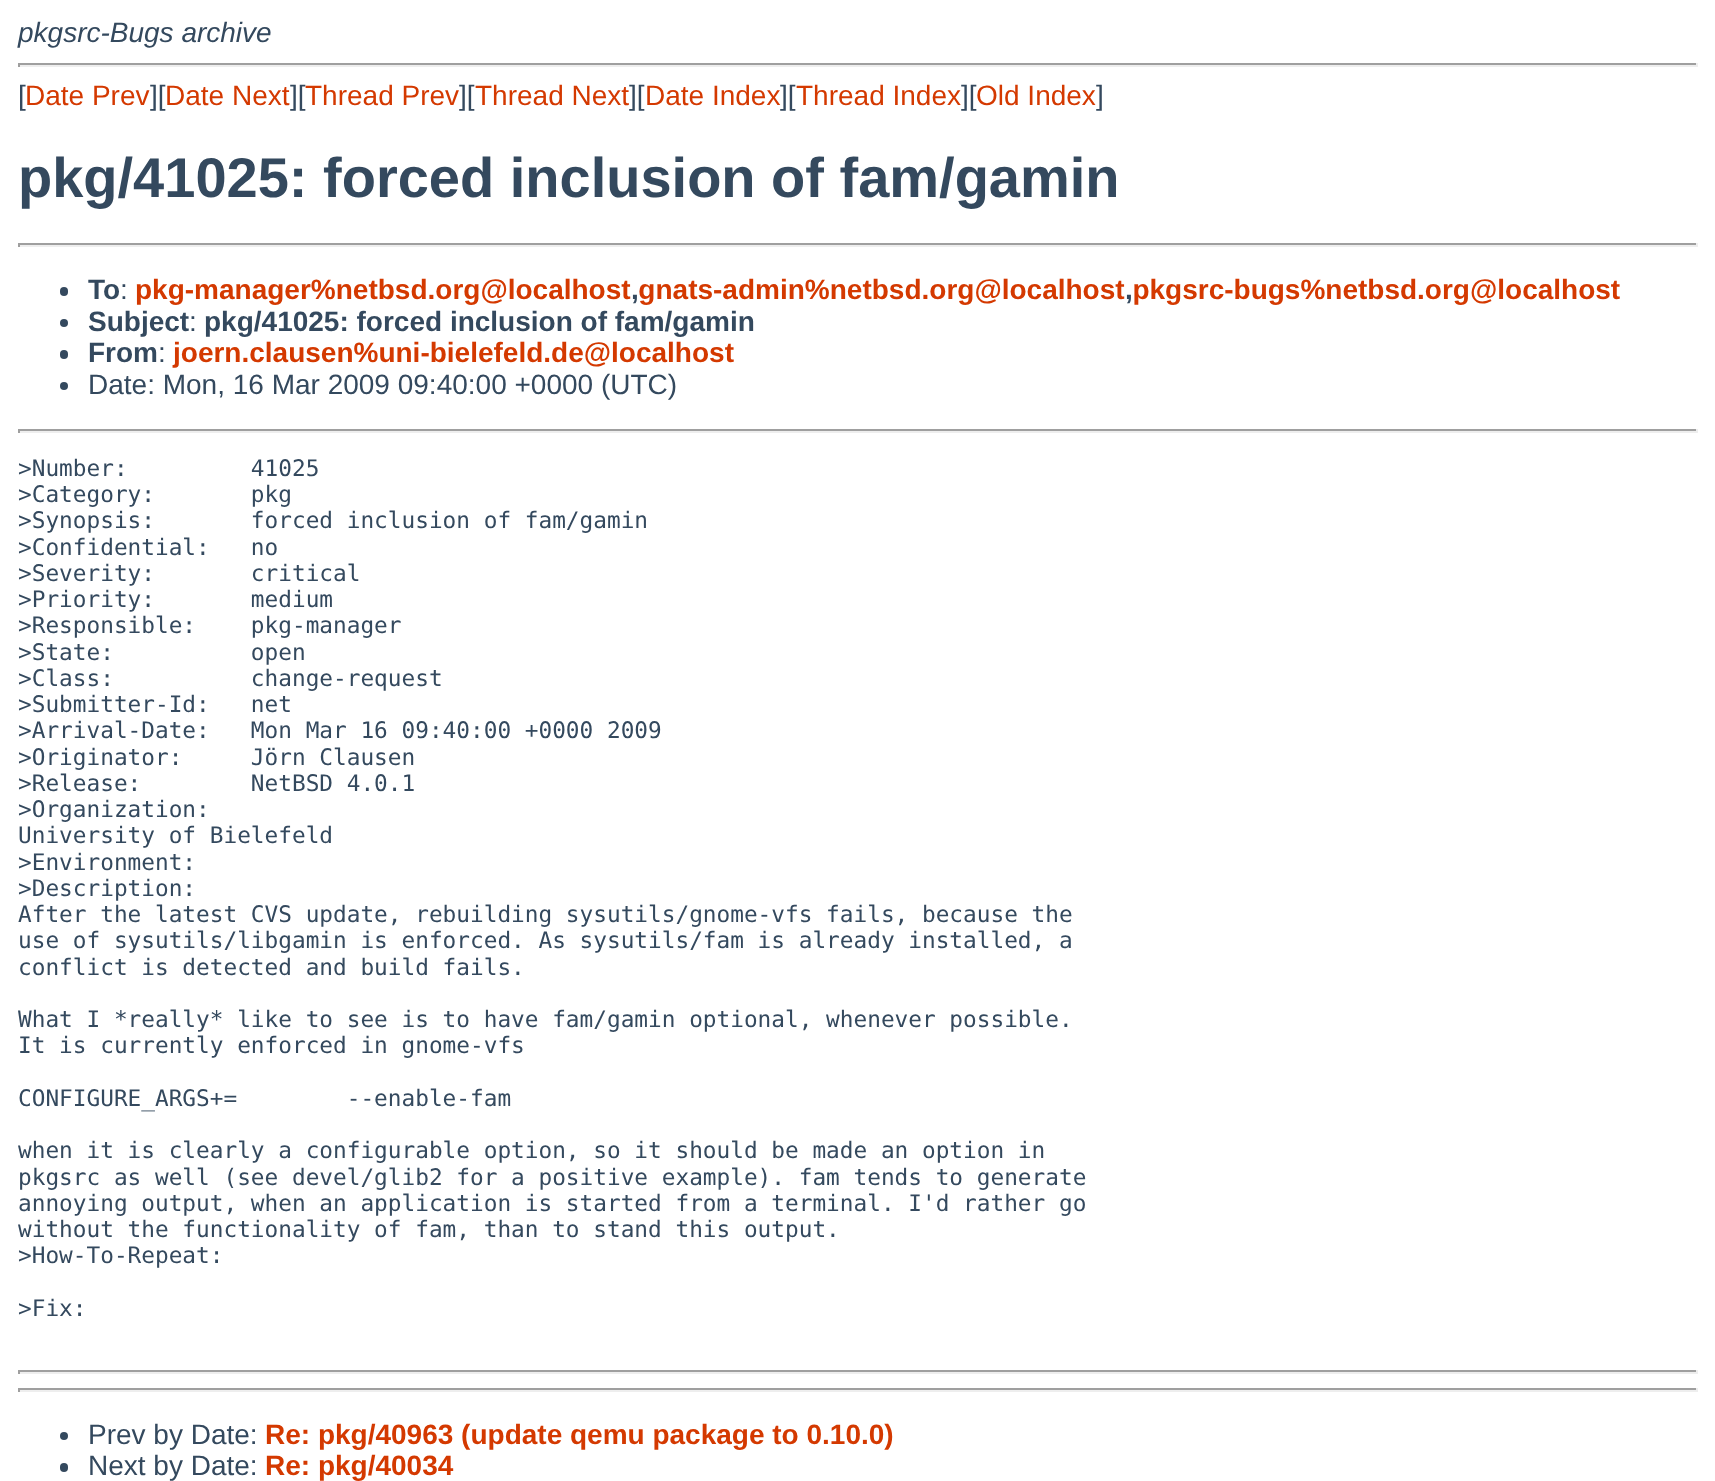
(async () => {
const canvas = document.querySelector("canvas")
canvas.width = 1715
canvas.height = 1481
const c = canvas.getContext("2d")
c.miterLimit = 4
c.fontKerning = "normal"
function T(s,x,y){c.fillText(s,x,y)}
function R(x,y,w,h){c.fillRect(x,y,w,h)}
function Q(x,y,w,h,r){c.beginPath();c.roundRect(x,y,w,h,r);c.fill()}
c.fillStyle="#fff"
R(0,0,1715,1481)
c.font="italic 28px Liberation Sans"
c.fillStyle="#34495e"
T("pkgsrc-Bugs archive",18,42)
c.fillStyle="#9f9f9f"
R(18,63,1680,2)
c.fillStyle="#eee"
R(1696,63,2,4)
R(18,65,1680,2)
c.fillStyle="#9f9f9f"
R(18,63,2,4)
c.font="28px Liberation Sans"
c.fillStyle="#34495e"
T("[",18,105)
c.fillStyle="#d43900"
T("Date Prev",25,105)
c.fillStyle="#34495e"
T("][",150,105)
c.fillStyle="#d43900"
T("Date Next",165,105)
c.fillStyle="#34495e"
T("][",290,105)
c.fillStyle="#d43900"
T("Thread Prev",305,105)
c.fillStyle="#34495e"
T("][",459,105)
c.fillStyle="#d43900"
T("Thread Next",475,105)
c.fillStyle="#34495e"
T("][",629,105)
c.fillStyle="#d43900"
T("Date Index",645,105)
c.fillStyle="#34495e"
T("][",780,105)
c.fillStyle="#d43900"
T("Thread Index",796,105)
c.fillStyle="#34495e"
T("][",961,105)
c.fillStyle="#d43900"
T("Old Index",976,105)
c.fillStyle="#34495e"
T("]",1096,105)
c.font="bold 56px Liberation Sans"
T("pkg/41025: forced inclusion of fam/gamin",18,197)
c.fillStyle="#9f9f9f"
R(18,243,1680,2)
c.fillStyle="#eee"
R(1696,243,2,4)
R(18,245,1680,2)
c.fillStyle="#9f9f9f"
R(18,243,2,4)
c.fillStyle="#34495e"
Q(60,287,8,9,4)
c.font="bold 28px Liberation Sans"
T("To",88,299)
c.font="28px Liberation Sans"
T(":",120,299)
c.font="bold 28px Liberation Sans"
c.fillStyle="#d43900"
T("pkg-manager%netbsd.org@localhost gnats-admin%netbsd.org@localhost pkgsrc-bugs%netbsd.org@localhost",135,299)
c.fillStyle="#34495e"
T(",",631,299)
T(",",1125,299)
c.beginPath()
c.arc(64,323,4,0,7)
c.fill()
T("Subject",88,331)
c.font="28px Liberation Sans"
T(":",189,331)
c.font="bold 28px Liberation Sans"
T("pkg/41025: forced inclusion of fam/gamin",204,331)
Q(60,350,8,9,4)
T("From",88,362)
c.font="28px Liberation Sans"
T(":",158,362)
c.font="bold 28px Liberation Sans"
c.fillStyle="#d43900"
T("joern.clausen%uni-bielefeld.de@localhost",173,362)
c.fillStyle="#34495e"
c.beginPath()
c.arc(64,386,4,0,7)
c.fill()
c.font="28px Liberation Sans"
T("Date: Mon, 16 Mar 2009 09:40:00 +0000 (UTC)",88,394)
c.fillStyle="#9f9f9f"
R(18,429,1680,2)
c.fillStyle="#eee"
R(1696,429,2,4)
R(18,431,1680,2)
c.fillStyle="#9f9f9f"
R(18,429,2,4)
c.font="22.75px DejaVu Sans Mono"
c.fillStyle="#34495e"
T(">Number:         41025",18,476)
T(">Category:       pkg",18,502)
T(">Synopsis:       forced inclusion of fam/gamin",18,528)
T(">Confidential:   no",18,555)
T(">Severity:       critical",18,581)
T(">Priority:       medium",18,607)
T(">Responsible:    pkg-manager",18,633)
T(">State:          open",18,660)
T(">Class:          change-request",18,686)
T(">Submitter-Id:   net",18,712)
T(">Arrival-Date:   Mon Mar 16 09:40:00 +0000 2009",18,738)
T(">Originator:     Jörn Clausen",18,765)
T(">Release:        NetBSD 4.0.1",18,791)
T(">Organization:",18,817)
T("University of Bielefeld",18,843)
T(">Environment:",18,870)
T(">Description:",18,896)
T("After the latest CVS update, rebuilding sysutils/gnome-vfs fails, because the",18,922)
T("use of sysutils/libgamin is enforced. As sysutils/fam is already installed, a",18,948)
T("conflict is detected and build fails.",18,975)
T("What I *really* like to see is to have fam/gamin optional, whenever possible.",18,1027)
T("It is currently enforced in gnome-vfs",18,1053)
T("CONFIGURE_ARGS+=        --enable-fam",18,1106)
T("when it is clearly a configurable option, so it should be made an option in",18,1158)
T("pkgsrc as well (see devel/glib2 for a positive example). fam tends to generate",18,1185)
T("annoying output, when an application is started from a terminal. I'd rather go",18,1211)
T("without the functionality of fam, than to stand this output.",18,1237)
T(">How-To-Repeat:",18,1263)
T(">Fix:",18,1316)
c.fillStyle="#9f9f9f"
R(18,1370,1680,2)
c.fillStyle="#eee"
R(1696,1370,2,4)
R(18,1372,1680,2)
c.fillStyle="#9f9f9f"
R(18,1370,2,4)
R(18,1388,1680,2)
c.fillStyle="#eee"
R(1696,1388,2,4)
R(18,1390,1680,2)
c.fillStyle="#9f9f9f"
R(18,1388,2,4)
c.fillStyle="#34495e"
c.beginPath()
c.arc(64,1436,4,0,7)
c.fill()
c.font="28px Liberation Sans"
T("Prev by Date:",88,1444)
c.font="bold 28px Liberation Sans"
c.fillStyle="#d43900"
T("Re: pkg/40963 (update qemu package to 0.10.0)",265,1444)
c.fillStyle="#34495e"
Q(60,1463,8,9,4)
c.font="28px Liberation Sans"
T("Next by Date:",88,1475)
c.font="bold 28px Liberation Sans"
c.fillStyle="#d43900"
T("Re: pkg/40034",265,1475)
})()
